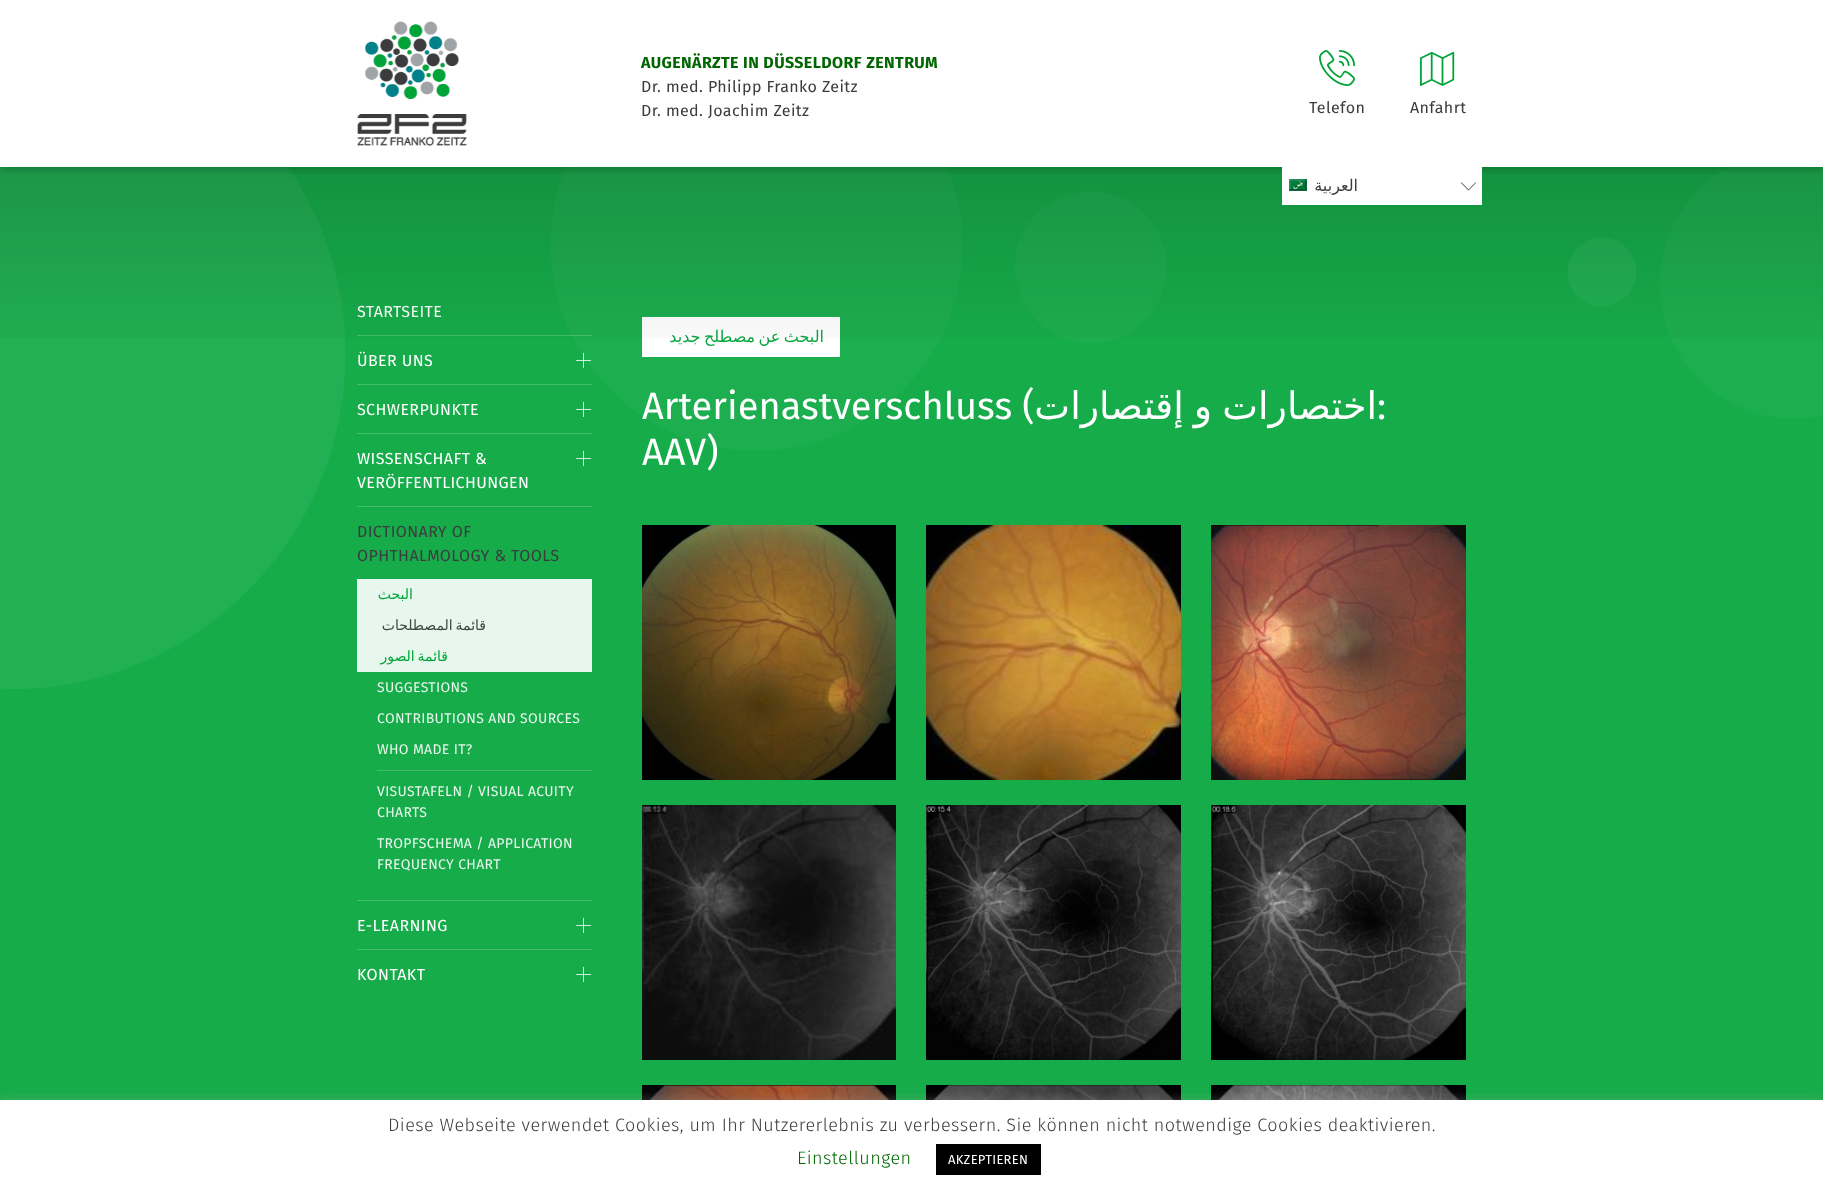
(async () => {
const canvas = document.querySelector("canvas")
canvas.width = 1823
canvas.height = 1192
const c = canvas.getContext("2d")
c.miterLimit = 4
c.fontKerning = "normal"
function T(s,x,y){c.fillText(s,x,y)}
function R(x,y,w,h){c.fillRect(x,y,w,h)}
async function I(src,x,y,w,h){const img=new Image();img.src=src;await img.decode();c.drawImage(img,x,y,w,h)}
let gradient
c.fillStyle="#fff"
R(0,0,1823,1192)
c.fillStyle="#16ac4a"
R(0,167,1823,933)
c.fillStyle="#45bd6e"
R(357,335,235,1)
c.letterSpacing="0.4px"
c.font="16px Fira Sans"
c.fillStyle="#fff"
T("STARTSEITE",357,317)
c.fillStyle="#45bd6e"
R(357,384,235,1)
c.fillStyle="#fff"
T("ÜBER UNS",357,366)
await I("7.png",576,352,16,16)
c.fillStyle="#45bd6e"
R(357,433,235,1)
c.fillStyle="#fff"
T("SCHWERPUNKTE",357,415)
await I("7.png",576,401,16,16)
c.fillStyle="#45bd6e"
R(357,506,235,1)
c.fillStyle="#fff"
T("WISSENSCHAFT &",357,464)
await I("7.png",576,450,16,16)
T("VERÖFFENTLICHUNGEN",357,488)
c.fillStyle="#3c3c3e"
T("DICTIONARY OF",357,537)
T("OPHTHALMOLOGY & TOOLS",357,561)
c.fillStyle="#e8f7ed"
R(357,579,235,93)
c.letterSpacing="0.35px"
c.direction="rtl"
c.font="14px DejaVu Sans"
c.fillStyle="#02a43a"
T("البحث",413,599)
c.wordSpacing="-2px"
c.fillStyle="#38473f"
T("قائمة المصطلحات",486,630)
c.fillStyle="#02a43a"
T("قائمة الصور",448,661)
c.wordSpacing="0px"
c.direction="ltr"
c.font="14px Fira Sans"
c.fillStyle="#e8f7ed"
T("SUGGESTIONS",377,692)
c.fillStyle="#fff"
R(642,317,198,40)
c.letterSpacing="0.4px"
c.wordSpacing="-2px"
c.direction="rtl"
c.font="16px DejaVu Sans"
c.fillStyle="#02a43a"
T("البحث عن مصطلح جديد",824,342)
c.letterSpacing="0px"
c.wordSpacing="0px"
c.direction="ltr"
c.font="38px Fira Sans"
c.fillStyle="#fff"
T("Arterienastverschluss (",642,419)
c.wordSpacing="-2px"
c.direction="rtl"
c.font="38px DejaVu Sans"
T("اختصارات و إقتصارات",1377,419)
c.wordSpacing="0px"
c.direction="ltr"
c.font="38px Fira Sans"
T(":",1377,419)
T("AAV)",642,465)
await I("8.png",642,525,254,255)
await I("9.png",926,525,255,255)
await I("10.png",1211,525,255,255)
await I("6.png",0,167,1823,522)
gradient = c.createLinearGradient(912,167,912,367)
gradient.addColorStop(0,"#00000026")
gradient.addColorStop(1,"#00000000")
c.fillStyle = gradient
R(0,167,1823,171)
c.save()
c.beginPath()
c.rect(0,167,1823,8)
c.clip()
c.fillStyle="#00000054"
c.filter="blur(5px)"
c.beginPath()
c.rect(2,0,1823,167)
c.fill()
c.filter="none"
c.restore()
await I("1.png",357,21,110,125)
c.letterSpacing="0.4px"
c.font="bold 16px Fira Sans"
c.fillStyle="#060"
T("AUGENÄRZTE IN DÜSSELDORF ZENTRUM",641,68)
c.font="16px Fira Sans"
c.fillStyle="#3c3c3e"
T("Dr. med. Philipp Franko Zeitz",641,92)
T("Dr. med. Joachim Zeitz",641,116)
await I("2.png",1319,50,36,36)
T("Telefon",1309,113)
await I("3.png",1420,51,35,35)
T("Anfahrt",1410,113)
c.fillStyle="#fff"
R(1282,167,200,38)
await I("4.png",1461,182,15,9)
await I("5.png",1289,179,18,12)
c.direction="rtl"
c.font="16px DejaVu Sans"
c.fillStyle="#3c3c3e"
T("العربية",1358,191)
c.fillStyle="#45bd6e"
R(357,900,235,1)
c.letterSpacing="0.35px"
c.direction="ltr"
c.font="14px Fira Sans"
c.fillStyle="#e8f7ed"
T("CONTRIBUTIONS AND SOURCES",377,723)
T("WHO MADE IT?",377,754)
c.fillStyle="#41bb6a"
R(377,770,215,1)
c.fillStyle="#e8f7ed"
T("VISUSTAFELN / VISUAL ACUITY",377,796)
T("CHARTS",377,817)
T("TROPFSCHEMA / APPLICATION",377,848)
T("FREQUENCY CHART",377,869)
c.fillStyle="#45bd6e"
R(357,949,235,1)
c.letterSpacing="0.4px"
c.font="16px Fira Sans"
c.fillStyle="#fff"
T("E-LEARNING",357,931)
await I("7.png",576,917,16,16)
T("KONTAKT",357,980)
await I("7.png",576,966,16,16)
await I("11.png",642,805,254,255)
await I("12.png",926,805,255,255)
await I("13.png",1211,805,255,255)
await I("14.png",642,1085,254,15)
await I("15.png",926,1085,255,15)
await I("16.png",1211,1085,255,15)
c.fillStyle="#acabab4d"
c.filter="blur(5px)"
c.beginPath()
c.rect(0,1099,1823,92)
c.fill()
c.filter="none"
c.fillStyle="#fff"
R(0,1100,1823,92)
c.letterSpacing="0.45px"
c.font="300 18px Fira Sans"
c.fillStyle="#3c3c3e"
T("Diese Webseite verwendet Cookies, um Ihr Nutzererlebnis zu verbessern. Sie können nicht notwendige Cookies deaktivieren.",388,1131)
c.fillStyle="#060"
T("Einstellungen",797,1164)
c.fillStyle="#000"
R(936,1144,105,31)
c.letterSpacing="0.25px"
c.font="13px Fira Sans"
c.fillStyle="#fff"
T("AKZEPTIEREN",948,1164)
})()
